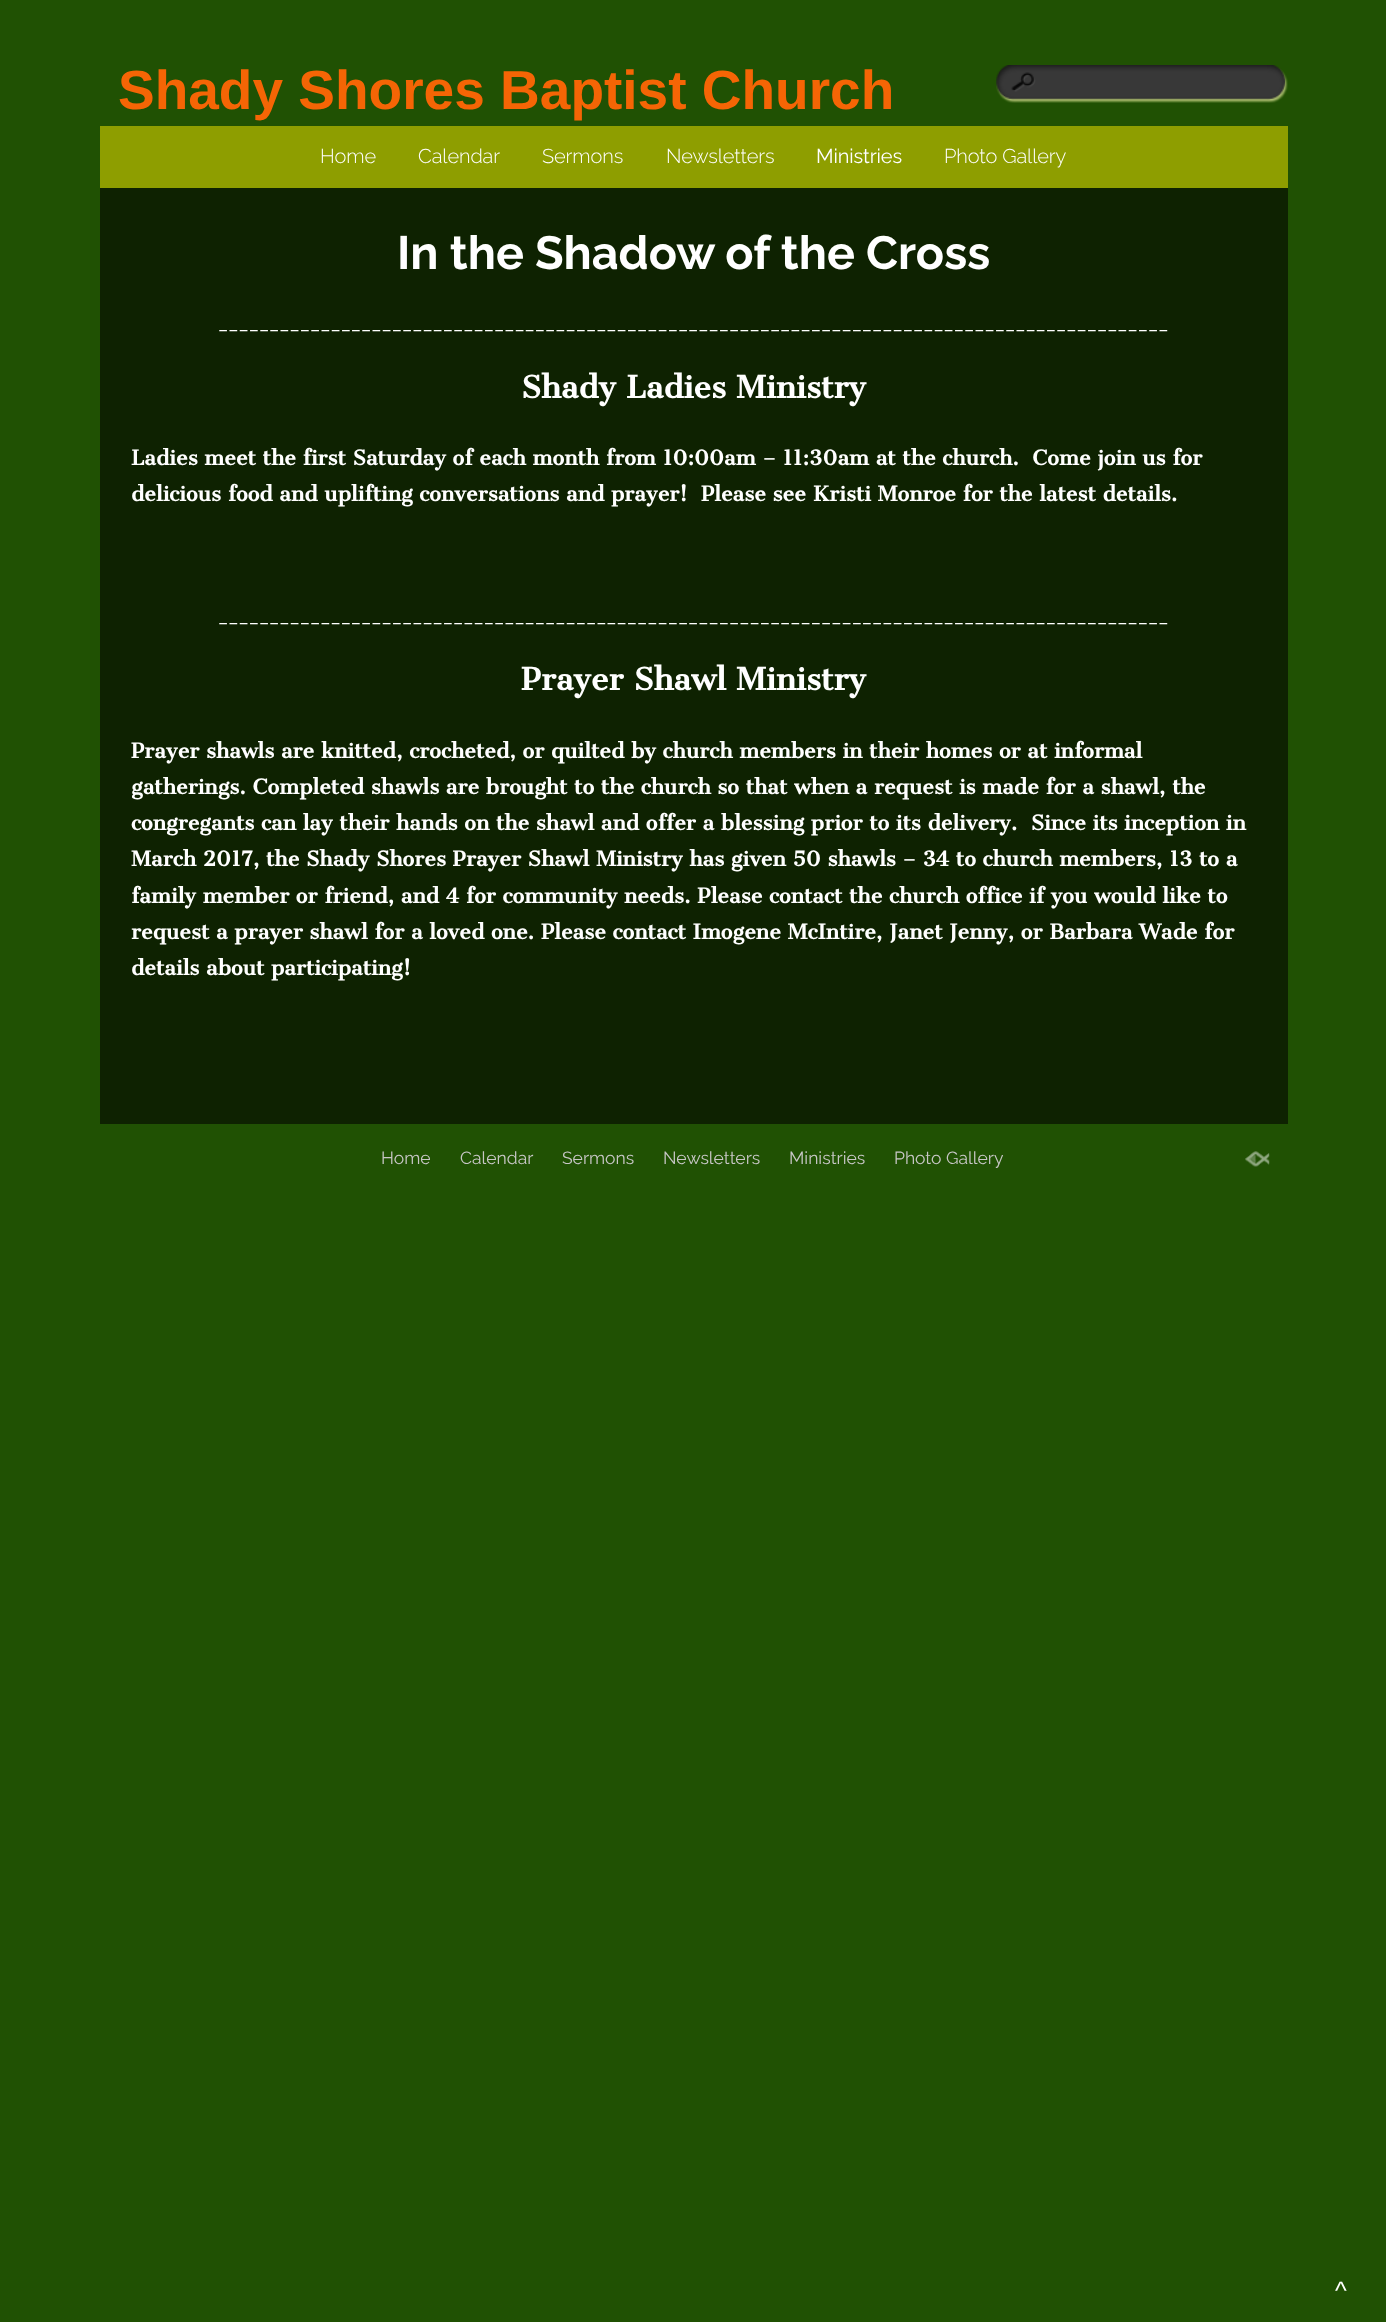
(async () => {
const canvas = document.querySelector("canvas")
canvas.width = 1386
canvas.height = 2322
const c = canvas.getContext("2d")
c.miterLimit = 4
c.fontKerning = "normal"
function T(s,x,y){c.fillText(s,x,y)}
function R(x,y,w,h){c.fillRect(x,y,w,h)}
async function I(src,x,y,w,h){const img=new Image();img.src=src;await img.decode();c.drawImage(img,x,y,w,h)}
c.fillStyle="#205103"
R(0,0,1386,2322)
c.font="bold 55px Liberation Sans"
c.fillStyle="#f56505"
T("Shady Shores Baptist Church",118,109)
await I("1.png",996,65,292,38)
c.fillStyle="#8e9e00"
R(100,126,1188,62)
c.letterSpacing="-0.1px"
c.font="300 20px Raleway"
c.fillStyle="#fff"
T("Home",320,163)
T("Calendar",418,163)
T("Sermons",542,163)
T("Newsletters",666,163)
c.font="20px Raleway"
T("Ministries",816,163)
c.font="300 20px Raleway"
T("Photo Gallery",944,163)
c.fillStyle="#0e2201"
R(100,188,1188,936)
c.letterSpacing="0px"
c.font="bold 46.7px Raleway"
c.fillStyle="#fff"
T("In the Shadow of the Cross",397,269)
c.font="20px Raleway"
T("_____________________________________________________________________________________________",218,330)
c.font="bold 30px Cantata One"
T("Shady Ladies Ministry",521,398)
c.font="bold 20px Cantata One"
T("Ladies meet the first Saturday of each month from 10:00am – 11:30am at the church.  Come join us for",131,465)
T("delicious food and uplifting conversations and prayer!  Please see Kristi Monroe for the latest details.",131,501)
c.font="20px Raleway"
T("_____________________________________________________________________________________________",218,623)
c.font="bold 30px Cantata One"
T("Prayer Shawl Ministry",521,690)
c.font="bold 20px Cantata One"
T("Prayer shawls are knitted, crocheted, or quilted by church members in their homes or at informal",131,758)
T("gatherings. Completed shawls are brought to the church so that when a request is made for a shawl, the",131,794)
T("congregants can lay their hands on the shawl and offer a blessing prior to its delivery.  Since its inception in",131,830)
T("March 2017, the Shady Shores Prayer Shawl Ministry has given 50 shawls – 34 to church members, 13 to a",131,866)
T("family member or friend, and 4 for community needs. Please contact the church office if you would like to",131,903)
T("request a prayer shawl for a loved one. Please contact Imogene McIntire, Janet Jenny, or Barbara Wade for",131,939)
T("details about participating!",131,975)
c.font="17.5px Raleway"
c.fillStyle="#c8c7c7"
T("Home",381,1164)
T("Calendar",460,1164)
T("Sermons",562,1164)
T("Newsletters",663,1164)
T("Ministries",789,1164)
T("Photo Gallery",894,1164)
await I("2.png",1245,1151,25,16)
c.font="25px Liberation Sans"
c.fillStyle="#fff"
T("^",1335,2299)
})()
